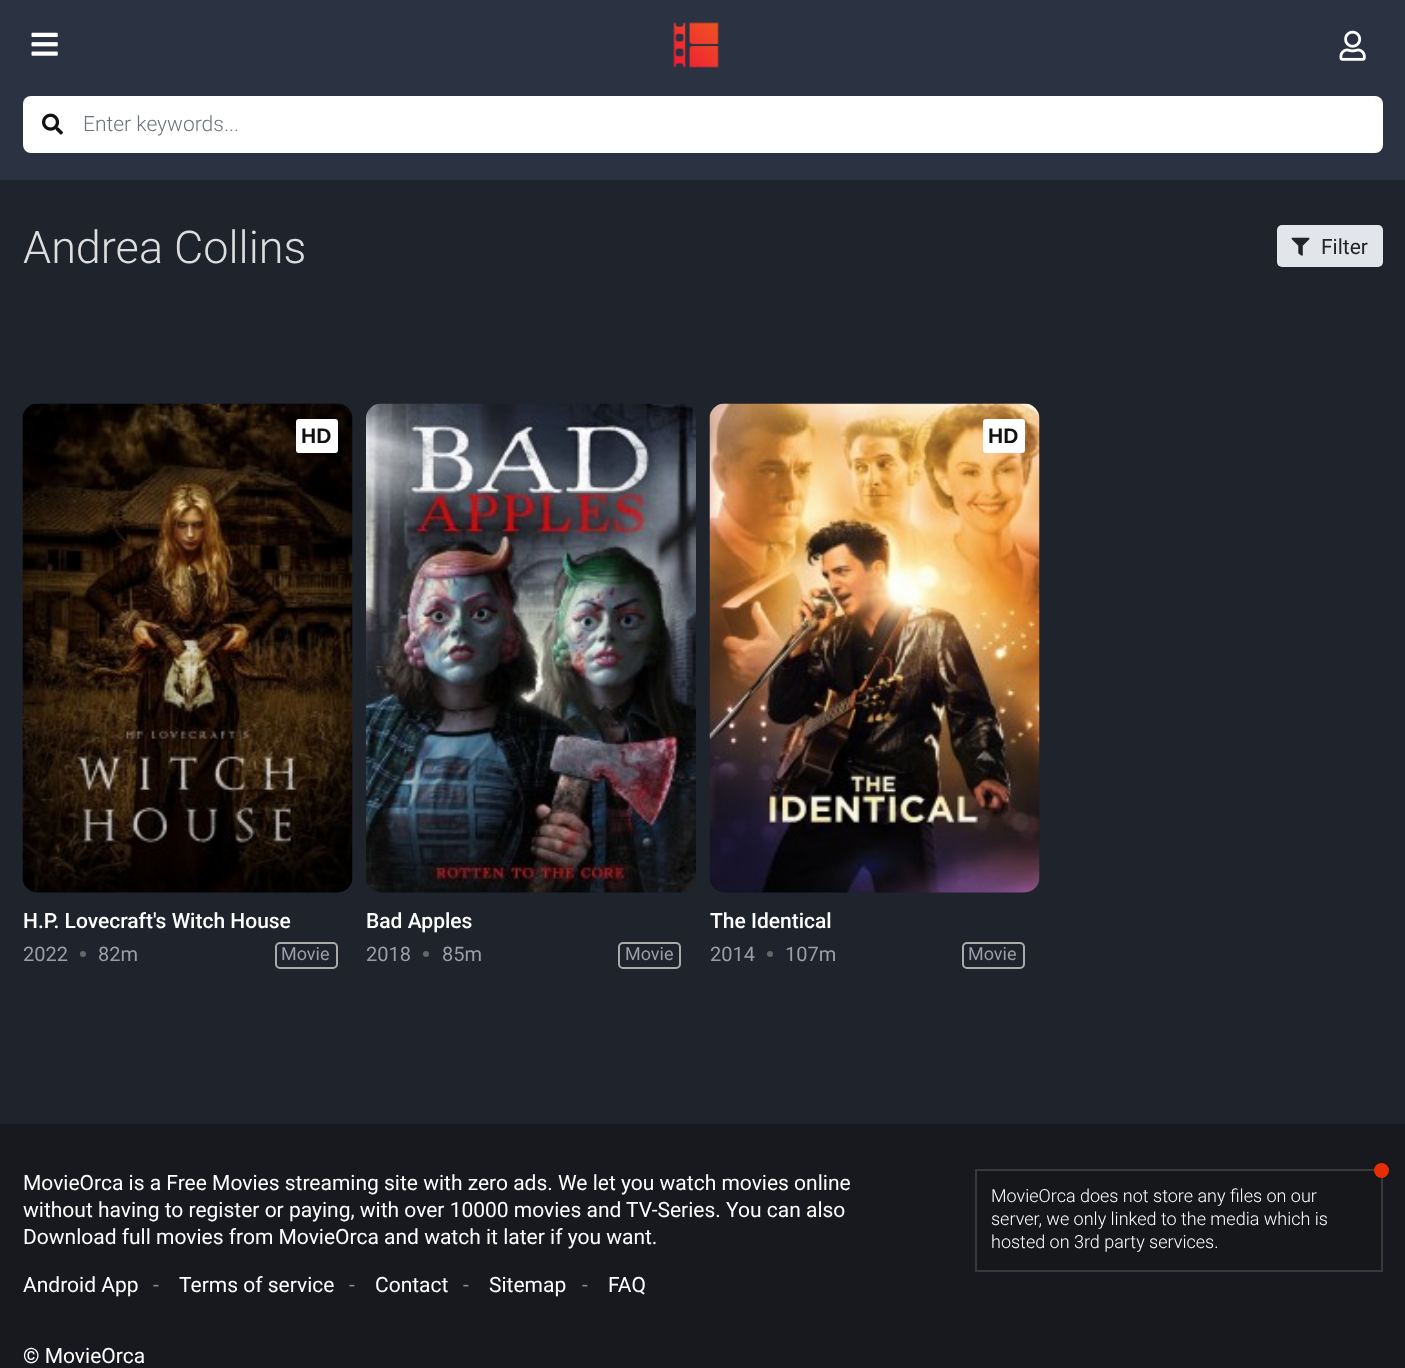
(async () => {
const canvas = document.querySelector("canvas")
canvas.width = 1405
canvas.height = 1368
const c = canvas.getContext("2d")
c.miterLimit = 4
c.fontKerning = "normal"
function T(s,x,y){c.fillText(s,x,y)}
function R(x,y,w,h){c.fillRect(x,y,w,h)}
function Q(x,y,w,h,r){c.beginPath();c.roundRect(x,y,w,h,r);c.fill()}
async function I(src,x,y,w,h){const img=new Image();img.src=src;await img.decode();c.drawImage(img,x,y,w,h)}
c.fillStyle="#1f232c"
R(0,0,1405,1368)
c.fillStyle="#2b3342"
R(0,0,1405,180)
await I("1.png",31,32,27,24)
await I("2.png",673,22,46,46)
await I("3.png",1339,30,27,31)
c.fillStyle="#fff"
Q(23,96,1360,57,8)
await I("4.png",42,113,21,22)
c.font="300 21px Roboto"
c.fillStyle="#6c757d"
T("Enter keywords...",83,131)
c.font="300 45px Roboto"
c.fillStyle="#ddd"
T("Andrea Collins",23,263)
c.fillStyle="#e2e6ea"
Q(1277,225,106,42,5)
await I("5.png",1291,237,19,19)
c.font="21px Roboto"
c.fillStyle="#212529"
T("Filter",1321,254)
await I("6.png",22,403,331,490)
c.fillStyle="#fff"
Q(296,419,42,34,3)
c.font="bold 21px Liberation Sans"
c.fillStyle="#111"
T("HD",301,443)
c.font="500 21px Roboto"
c.fillStyle="#fff"
T("H.P. Lovecraft's Witch House",23,928)
c.font="20px Roboto"
c.fillStyle="#9a9ea7"
T("2022",23,961)
c.fillStyle="#666"
c.beginPath()
c.arc(83,954,3,0,7)
c.fill()
c.fillStyle="#9a9ea7"
T("82m",98,961)
c.beginPath()
c.roundRect(276,943,61,25,4)
c.strokeStyle="#aaa"
c.lineWidth=2
c.stroke()
c.font="18px Roboto"
T("Movie",281,960)
await I("7.png",366,403,330,490)
c.font="500 21px Roboto"
c.fillStyle="#fff"
T("Bad Apples",366,928)
c.font="20px Roboto"
c.fillStyle="#9a9ea7"
T("2018",366,961)
c.fillStyle="#666"
c.beginPath()
c.arc(426,954,3,0,7)
c.fill()
c.fillStyle="#9a9ea7"
T("85m",442,961)
c.beginPath()
c.roundRect(619,943,61,25,4)
c.stroke()
c.font="18px Roboto"
T("Movie",625,960)
await I("8.png",709,403,331,490)
c.fillStyle="#fff"
Q(983,419,42,34,3)
c.font="bold 21px Liberation Sans"
c.fillStyle="#111"
T("HD",988,443)
c.font="500 21px Roboto"
c.fillStyle="#fff"
T("The Identical",710,928)
c.font="20px Roboto"
c.fillStyle="#9a9ea7"
T("2014",710,961)
c.fillStyle="#666"
c.beginPath()
c.arc(770,954,3,0,7)
c.fill()
c.fillStyle="#9a9ea7"
T("107m",785,961)
c.beginPath()
c.roundRect(963,943,61,25,4)
c.stroke()
c.font="18px Roboto"
T("Movie",968,960)
c.fillStyle="#17191e"
R(0,1124,1405,244)
c.font="21px Roboto"
c.fillStyle="#fff"
T("MovieOrca is a Free Movies streaming site with zero ads. We let you watch movies online",23,1190)
T("without having to register or paying, with over 10000 movies and",23,1217)
T("TV-Series. You can also",626,1217)
T("Download full movies from MovieOrca and watch it later if you want.",23,1244)
T("Android App",23,1292)
c.fillStyle="#8b8c8f"
T("-",153,1292)
c.fillStyle="#fff"
T("Terms of service",179,1292)
c.fillStyle="#8b8c8f"
T("-",349,1292)
c.fillStyle="#fff"
T("Contact",375,1292)
c.fillStyle="#8b8c8f"
T("-",463,1292)
c.fillStyle="#fff"
T("Sitemap",489,1292)
c.fillStyle="#8b8c8f"
T("-",582,1292)
c.fillStyle="#fff"
T("FAQ",608,1292)
c.fillStyle="#15171b"
c.beginPath()
c.rect(976,1170,406,101)
c.fill()
c.strokeStyle="#393939"
c.stroke()
c.fillStyle="#e62e05"
c.beginPath()
c.arc(1381.5,1170.5,7.5,0,7)
c.fill()
c.font="300 18px Roboto"
c.fillStyle="#fff"
T("MovieOrca does not store any files on our",991,1202)
T("server, we only linked to the media which is",991,1225)
T("hosted on 3rd party services.",991,1248)
c.font="21px Roboto"
T("© MovieOrca",23,1363)
})()
